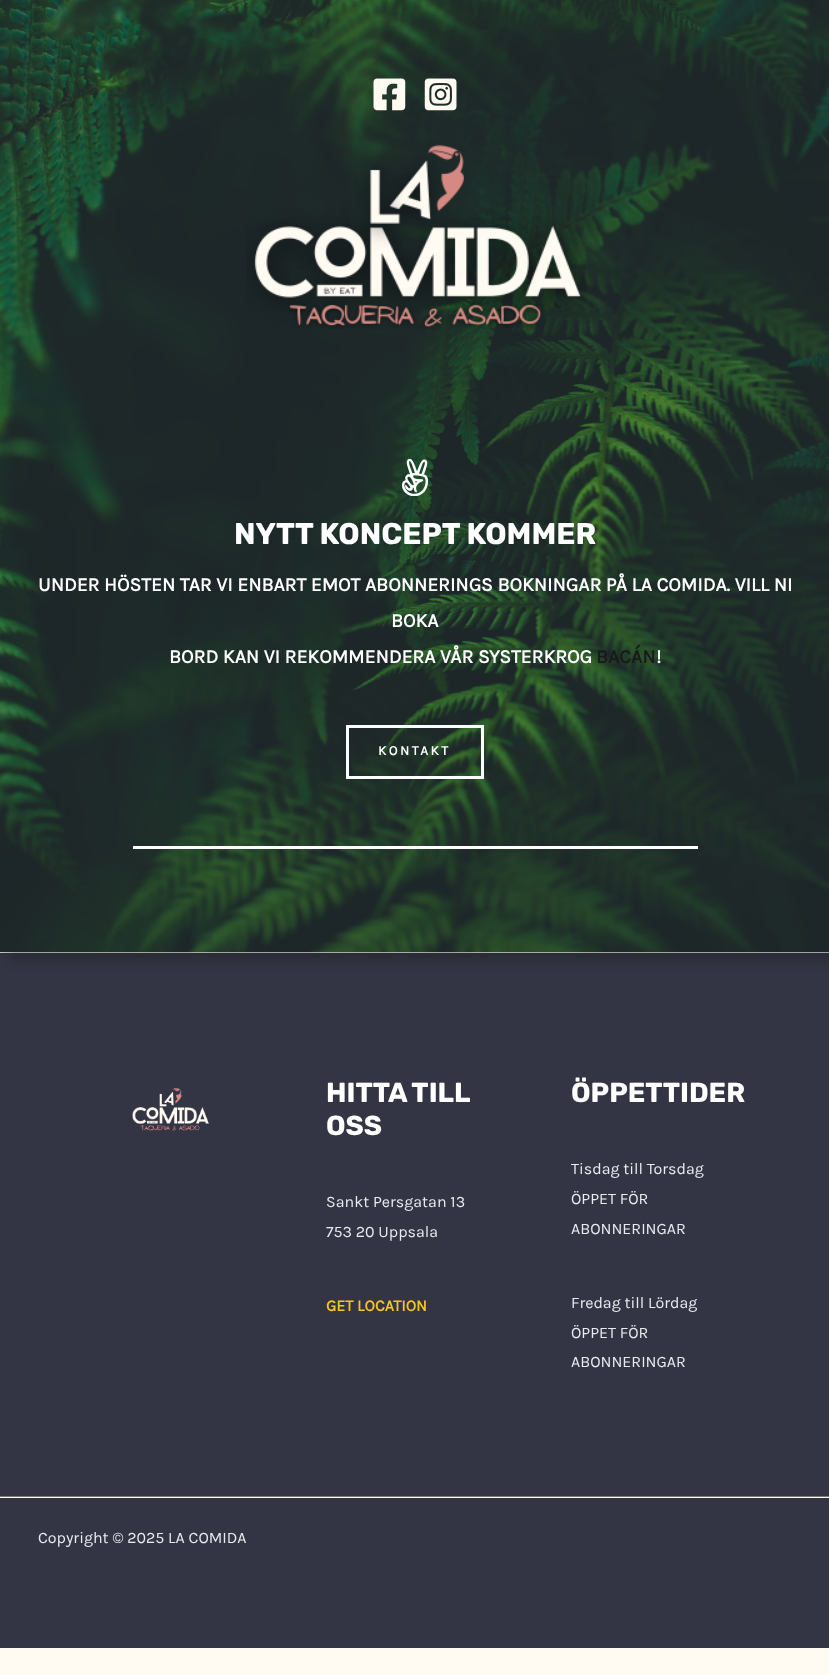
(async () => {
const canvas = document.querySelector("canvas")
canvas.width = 829
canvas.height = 1675
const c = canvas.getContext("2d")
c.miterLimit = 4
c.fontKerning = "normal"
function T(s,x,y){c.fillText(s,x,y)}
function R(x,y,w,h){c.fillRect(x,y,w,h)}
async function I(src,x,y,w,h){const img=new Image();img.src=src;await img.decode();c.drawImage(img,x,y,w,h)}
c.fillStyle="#fffaf2"
R(0,0,829,1675)
c.fillStyle="#333544"
R(0,953,829,543)
c.fillStyle="#00000033"
c.filter="blur(5.5px)"
c.beginPath()
c.rect(8,8,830,952)
c.fill()
c.filter="none"
await I("3.png",0,0,829,953)
await I("1.png",373,78,33,33)
await I("2.png",424,78,33,33)
await I("4.png",246,144,340,185)
await I("5.png",402,459,26,37)
c.font="300 30px Rubik"
c.fillStyle="#fff"
T("NYTT KONCEPT KOMMER",234,544)
c.font="bold 19.4px Karla"
T("UNDER HÖSTEN TAR VI ENBART EMOT ABONNERINGS BOKNINGAR PÅ LA COMIDA. VILL NI",38,591)
T("BOKA",391,627)
T("BORD KAN VI REKOMMENDERA VÅR SYSTERKROG",169,663)
c.fillStyle="#1a1a1a"
T("BACÁN",596,663)
c.fillStyle="#fff"
T("!",656,663)
c.strokeStyle="#fbfcff"
c.lineWidth=3
c.strokeRect(347.5,726.5,135,51)
c.letterSpacing="2.5px"
c.font="bold 13.5px Karla"
T("KONTAKT",378,755)
R(133,846,565,3)
await I("6.png",132,1087,77,44)
c.letterSpacing="0px"
c.wordSpacing="-1px"
c.font="300 27.5px Rubik"
T("HITTA TILL",326,1102)
c.wordSpacing="0px"
T("OSS",326,1135)
c.font="16px Karla"
c.fillStyle="#e9ecef"
T("Sankt Persgatan 13",326,1207)
T("753 20 Uppsala",326,1237)
c.font="bold 16px Karla"
c.fillStyle="#f5c61c"
T("GET LOCATION",326,1311)
c.font="300 27.5px Rubik"
c.fillStyle="#fff"
T("ÖPPETTIDER",571,1102)
c.font="16px Karla"
c.fillStyle="#e9ecef"
T("Tisdag till Torsdag",571,1174)
T("ÖPPET FÖR",571,1204)
T("ABONNERINGAR",571,1234)
T("Fredag till Lördag",571,1308)
T("ÖPPET FÖR",571,1338)
T("ABONNERINGAR",571,1367)
c.fillStyle="#333544"
R(0,1498,829,150)
c.fillStyle="#7a7a7a"
R(0,1496,829,1)
c.fillStyle="#e9ecef"
T("Copyright © 2025 LA COMIDA",38,1543)
})()
